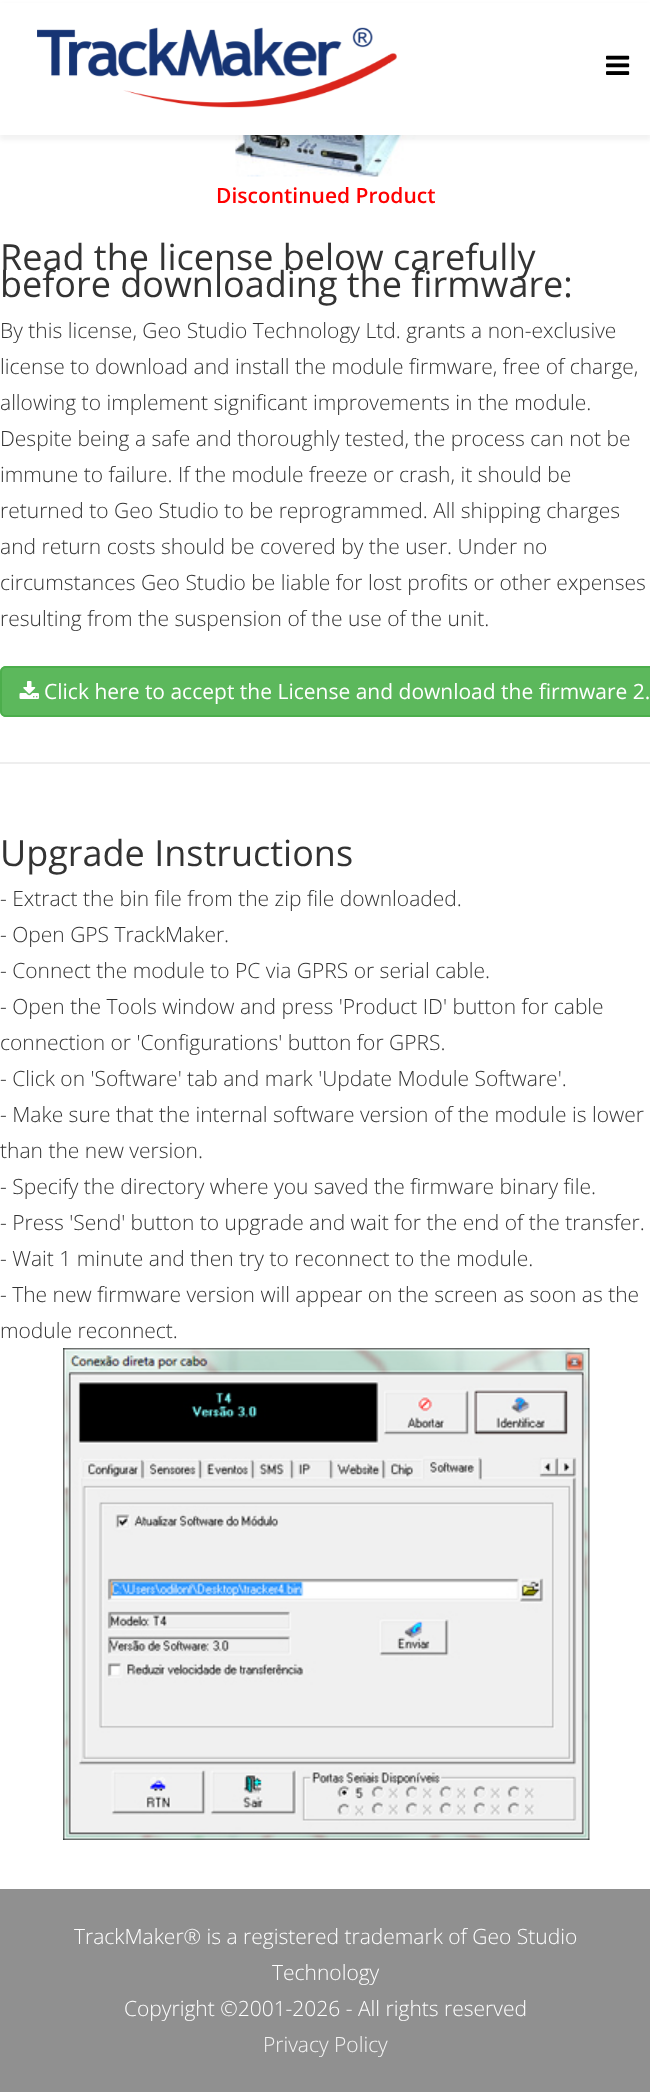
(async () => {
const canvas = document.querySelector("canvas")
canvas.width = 650
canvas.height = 2092
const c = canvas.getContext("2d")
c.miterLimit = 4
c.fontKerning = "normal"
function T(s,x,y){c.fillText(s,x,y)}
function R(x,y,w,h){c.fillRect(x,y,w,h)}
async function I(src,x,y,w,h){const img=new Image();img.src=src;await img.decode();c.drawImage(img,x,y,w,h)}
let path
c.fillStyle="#fff"
R(0,0,650,2092)
await I("3.png",235,135,181,42)
c.fillStyle="#0000000d"
c.filter="blur(2px)"
c.beginPath()
c.rect(0,5,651,135)
c.fill()
c.filter="none"
c.fillStyle="#fff"
R(0,3,650,132)
await I("1.png",37,27,360,81)
await I("2.png",606,55,24,20)
c.font="600 21px Open Sans"
c.fillStyle="#f00"
T("Discontinued Product",216,203)
c.font="36px Open Sans"
c.fillStyle="#333"
T("Read the license below carefully",0,270)
T("before downloading the firmware:",0,297)
c.font="300 21px Open Sans"
T("By this license, Geo Studio Technology Ltd. grants a non-exclusive",0,338)
T("license to download and install the module firmware, free of charge,",0,374)
T("allowing to implement significant improvements in the module.",0,410)
T("Despite being a safe and thoroughly tested, the process can not be",0,446)
T("immune to failure. If the module freeze or crash, it should be",0,482)
T("returned to Geo Studio to be reprogrammed. All shipping charges",0,518)
T("and return costs should be covered by the user. Under no",0,554)
T("circumstances Geo Studio be liable for lost profits or other expenses",0,590)
T("resulting from the suspension of the use of the unit.",0,626)
c.fillStyle="#5cb85c"
path = new Path2D("M6 666h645v51h-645c-3.5 0-6-2.5-6-6v-39c0-3.5 2.5-6 6-6z")
c.fill(path)
c.beginPath()
c.roundRect(1,667,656,49,5)
c.strokeStyle="#4cae4c"
c.lineWidth=2
c.stroke()
await I("4.png",19,681,20,18)
c.font="21px Open Sans"
c.fillStyle="#fff"
T("Click here to accept the License and download the firmware 2.",44,699)
c.fillStyle="#eee"
R(0,762,650,2)
c.font="36px Open Sans"
c.fillStyle="#333"
T("Upgrade Instructions",0,866)
c.font="300 21px Open Sans"
T("- Extract the bin file from the zip file downloaded.",0,906)
T("- Open GPS TrackMaker.",0,942)
T("- Connect the module to PC via GPRS or serial cable.",0,978)
T("- Open the Tools window and press 'Product ID' button for cable",0,1014)
T("connection or 'Configurations' button for GPRS.",0,1050)
T("- Click on 'Software' tab and mark 'Update Module Software'.",0,1086)
T("- Make sure that the internal software version of the module is lower",0,1122)
T("than the new version.",0,1158)
T("- Specify the directory where you saved the firmware binary file.",0,1194)
T("- Press 'Send' button to upgrade and wait for the end of the transfer.",0,1230)
T("- Wait 1 minute and then try to reconnect to the module.",0,1266)
T("- The new firmware version will appear on the screen as soon as the",0,1302)
T("module reconnect.",0,1338)
await I("5.png",63,1348,527,492)
c.fillStyle="#909090"
R(0,1889,650,203)
c.fillStyle="#fff"
T("TrackMaker® is a registered trademark of Geo Studio",74,1944)
T("Technology",272,1980)
T("Copyright ©2001-2026 - All rights reserved",124,2016)
c.fillStyle="#f4f4f4"
T("Privacy Policy",263,2052)
})()
